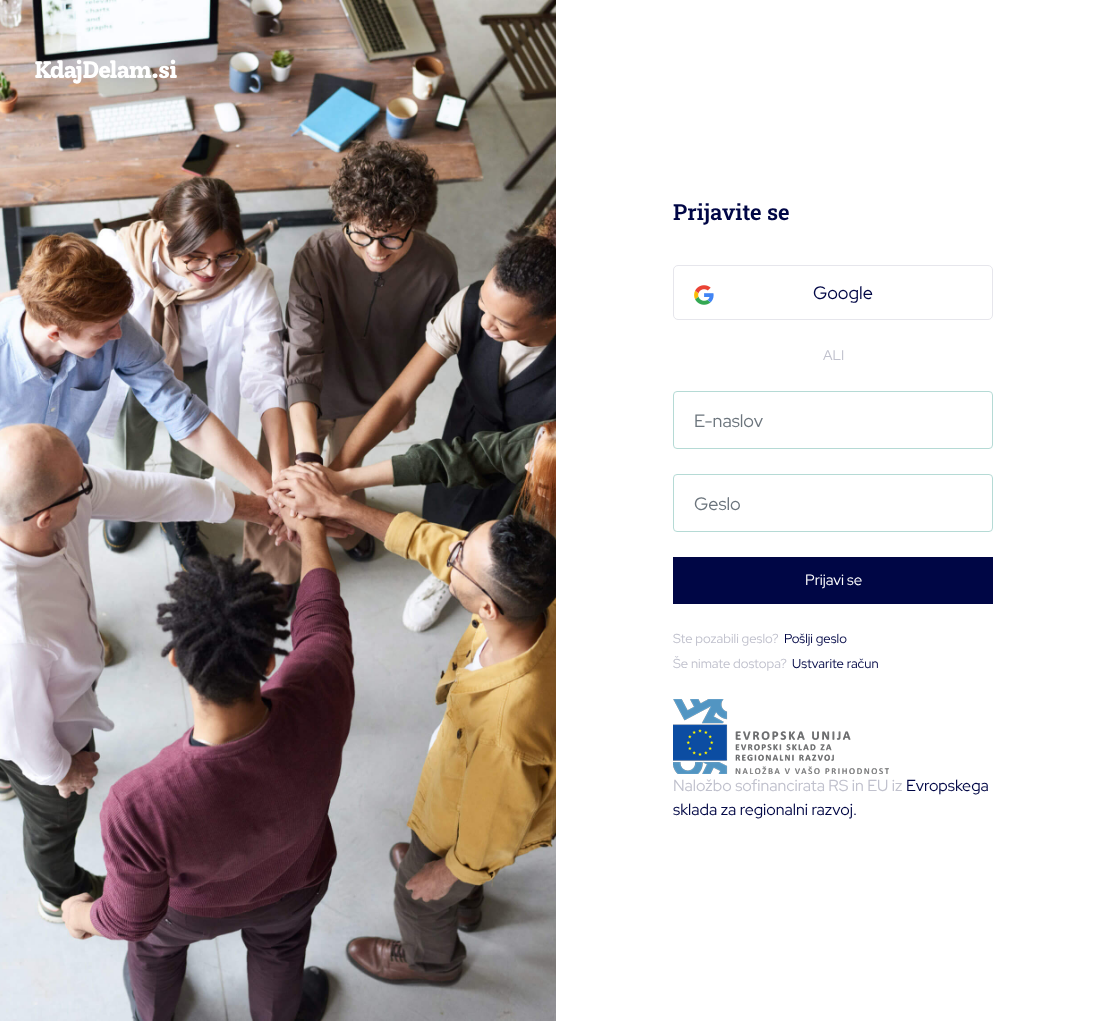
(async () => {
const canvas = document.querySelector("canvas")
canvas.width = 1111
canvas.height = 1021
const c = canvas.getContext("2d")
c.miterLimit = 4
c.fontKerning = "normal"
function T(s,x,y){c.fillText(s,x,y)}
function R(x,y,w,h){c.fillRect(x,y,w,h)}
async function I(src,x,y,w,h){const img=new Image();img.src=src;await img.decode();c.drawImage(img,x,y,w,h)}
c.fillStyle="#fff"
R(0,0,1111,1021)
await I("2.png",0,0,556,1021)
await I("1.png",35,59,142,25)
c.font="600 22px Roboto Slab"
c.fillStyle="#000645"
T("Prijavite se",673,220)
c.beginPath()
c.roundRect(673.5,265.5,319,54,4.5)
c.strokeStyle="#e6e6ec"
c.stroke()
await I("3.png",694,285,20,20)
c.font="18px Red Hat Display"
T("Google",813,299)
c.font="14px Red Hat Display"
c.fillStyle="#c0c1cd"
T("ALI",823,360)
c.beginPath()
c.roundRect(673.5,391.5,319,57,3.5)
c.strokeStyle="#b5dad5"
c.stroke()
c.font="18px Red Hat Display"
c.fillStyle="#6c757d"
T("E-naslov",694,427)
c.beginPath()
c.roundRect(673.5,474.5,319,57,3.5)
c.stroke()
T("Geslo",694,510)
c.fillStyle="#000645"
R(673,557,320,47)
c.font="15px Red Hat Display"
c.fillStyle="#fff"
T("Prijavi se",805,585)
c.font="13px Red Hat Display"
c.fillStyle="#c0c1cd"
T("Ste pozabili geslo?",673,643)
c.fillStyle="#000645"
T("Pošlji geslo",784,643)
c.fillStyle="#c0c1cd"
T("Še nimate dostopa?",673,668)
c.fillStyle="#000645"
T("Ustvarite račun",792,668)
await I("4.png",673,699,216,75)
c.font="16px Red Hat Display"
c.fillStyle="#c0c1cd"
T("Naložbo sofinancirata RS in EU iz",673,791)
c.fillStyle="#000645"
T("Evropskega",906,791)
T("sklada za regionalni razvoj.",673,815)
})()
